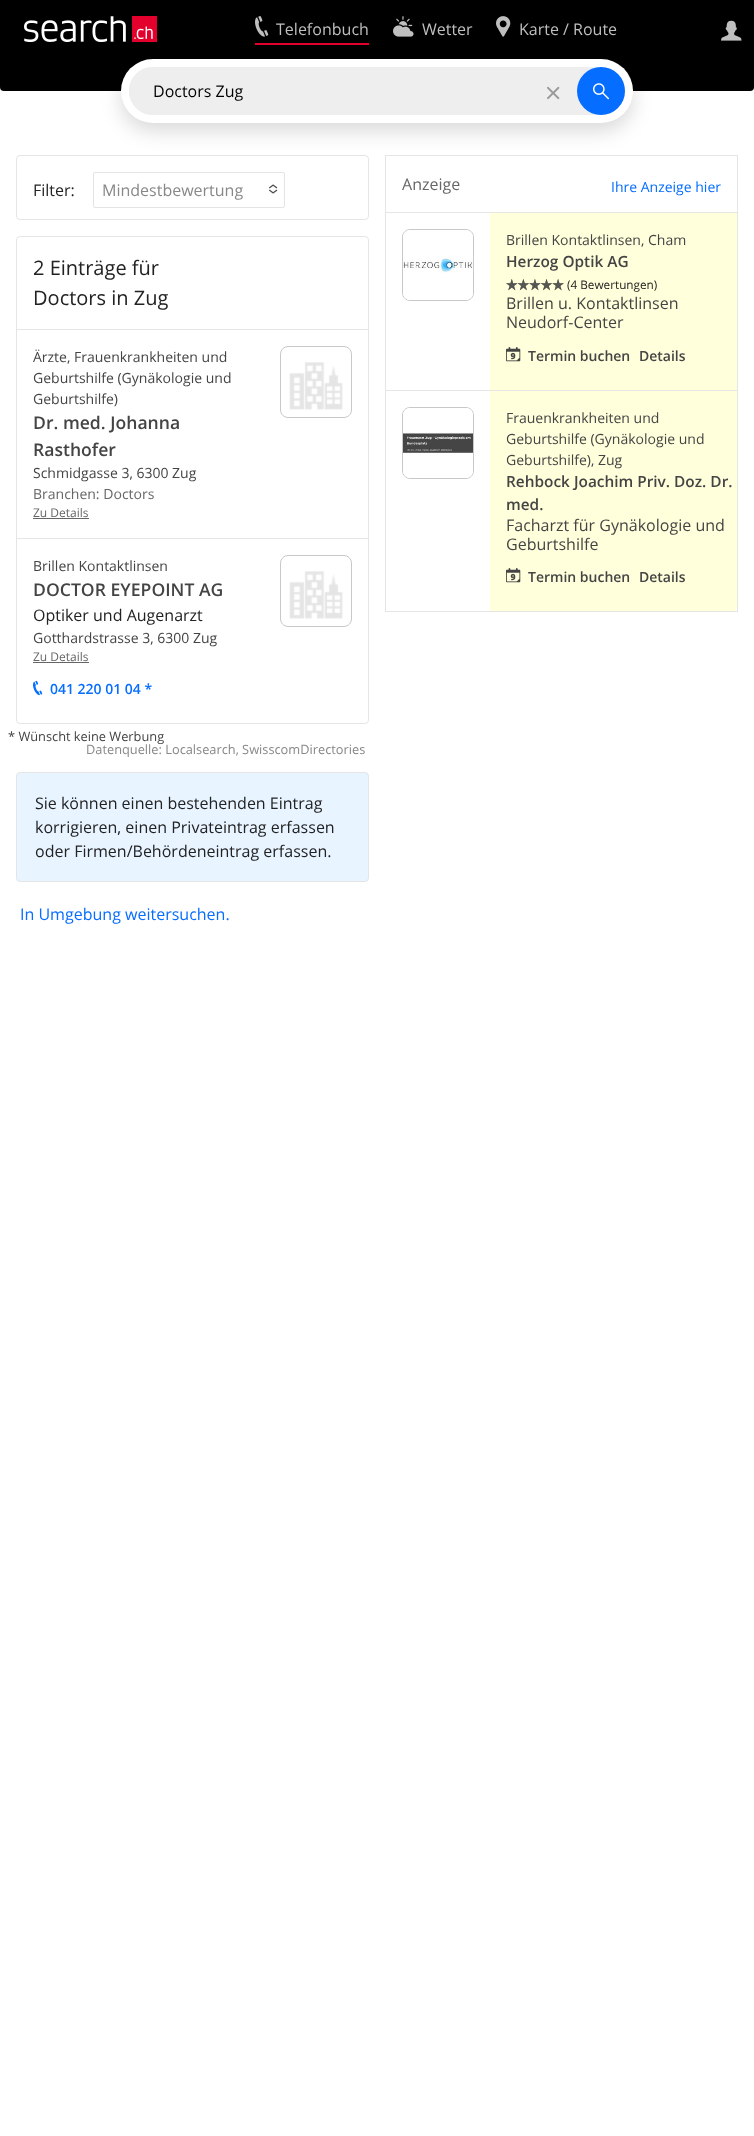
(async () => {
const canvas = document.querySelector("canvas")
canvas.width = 754
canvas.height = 2136
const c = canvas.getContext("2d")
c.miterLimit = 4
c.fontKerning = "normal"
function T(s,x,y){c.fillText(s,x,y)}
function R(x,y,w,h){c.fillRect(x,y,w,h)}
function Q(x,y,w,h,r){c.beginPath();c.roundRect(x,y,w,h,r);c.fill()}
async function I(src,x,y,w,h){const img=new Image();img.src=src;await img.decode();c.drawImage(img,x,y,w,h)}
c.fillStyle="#fff"
R(0,0,754,2136)
c.fillStyle="#000"
R(0,0,754,59)
await I("1.png",24,16,133,26)
c.fillStyle="#e4002c"
R(255,43,114,2)
await I("2.png",255,16,14,21)
c.font="16px Open Sans"
c.fillStyle="#bfbfbf"
T("Telefonbuch",276,35)
await I("3.png",393,16,21,21)
T("Wetter",422,35)
await I("4.png",496,16,15,21)
T("Karte / Route",519,35)
await I("5.png",721,20,21,21)
c.fillStyle="#000"
c.beginPath()
c.roundRect(0,59,754,32,[0,0,4,4])
c.fill()
c.beginPath()
c.roundRect(16.5,155.5,352,64,3.5)
c.strokeStyle="#e5e5e5"
c.stroke()
c.strokeRect(385.5,155.5,352,456)
c.fillStyle="#00000026"
c.filter="blur(10px)"
c.beginPath()
c.roundRect(121,67,512,64,32)
c.fill()
c.filter="none"
c.fillStyle="#fff"
Q(121,59,512,64,32)
c.fillStyle="#eee"
Q(129,67,496,48,24)
Q(129,67,400,48,24)
c.fillStyle="#000"
T("Doctors Zug",153,97)
await I("6.png",547,86,13,14)
c.fillStyle="#056dff"
c.beginPath()
c.arc(601,91,24,0,7)
c.fill()
await I("7.png",593,83,16,17)
c.fillStyle="#222"
T("Filter:",33,196)
c.beginPath()
c.roundRect(93.5,172.5,191,35,1.5)
c.strokeStyle="#e4e4e4"
c.stroke()
c.fillStyle="#888"
T("Mindestbewertung",102,196)
await I("8.png",269,184,9,10)
c.beginPath()
c.roundRect(16.5,236.5,352,487,3.5)
c.strokeStyle="#e5e5e5"
c.stroke()
c.font="20px Open Sans"
c.fillStyle="#222"
T("2 Einträge für",33,275)
T("Doctors in Zug",33,305)
c.fillStyle="#e6e6e6"
R(17,329,351,1)
c.font="14px Open Sans"
c.fillStyle="#444"
T("Ärzte, Frauenkrankheiten und",33,362)
T("Geburtshilfe (Gynäkologie und",33,383)
T("Geburtshilfe)",33,404)
c.font="600 17.6px Open Sans"
T("Dr. med. Johanna",33,429)
T("Rasthofer",33,456)
c.font="14px Open Sans"
T("Schmidgasse 3, 6300 Zug",33,478)
c.fillStyle="#666"
T("Branchen: Doctors",33,499)
c.font="12px Open Sans"
T("Zu Details",33,517)
R(33,518,56,1)
c.beginPath()
c.roundRect(280.5,346.5,71,71,7.5)
c.strokeStyle="#c8c8c8"
c.stroke()
await I("9.png",289,362,54,48)
c.fillStyle="#e6e6e6"
R(17,538,351,1)
c.font="14px Open Sans"
c.fillStyle="#444"
T("Brillen Kontaktlinsen",33,571)
c.font="600 17.6px Open Sans"
T("DOCTOR EYEPOINT AG",33,596)
c.font="16px Open Sans"
c.fillStyle="#222"
T("Optiker und Augenarzt",33,621)
c.font="14px Open Sans"
c.fillStyle="#444"
T("Gotthardstrasse 3, 6300 Zug",33,643)
c.font="12px Open Sans"
c.fillStyle="#666"
T("Zu Details",33,661)
R(33,662,56,1)
await I("10.png",33,680,10,16)
c.font="600 14px Open Sans"
c.fillStyle="#056dff"
T("041 220 01 04 *",50,694)
c.beginPath()
c.roundRect(280.5,555.5,71,71,7.5)
c.stroke()
await I("11.png",289,571,54,48)
c.font="12.8px Open Sans"
c.fillStyle="#444"
T("* Wünscht keine Werbung",8,741)
c.fillStyle="#888"
T("Datenquelle: Localsearch, SwisscomDirectories",86,754)
c.fillStyle="#e8f4ff"
c.beginPath()
c.roundRect(16.5,772.5,352,109,3.5)
c.fill()
c.strokeStyle="#e5e5e5"
c.stroke()
c.font="16px Open Sans"
c.fillStyle="#222"
T("Sie können einen bestehenden Eintrag",35,809)
T("korrigieren, einen Privateintrag erfassen",35,833)
T("oder Firmen/Behördeneintrag erfassen.",35,857)
c.fillStyle="#056dff"
T("In Umgebung weitersuchen.",20,920)
c.fillStyle="#666"
T("Anzeige",402,190)
c.font="14px Open Sans"
c.fillStyle="#056dff"
T("Ihre Anzeige hier",611,192)
c.fillStyle="#e6e6e6"
R(386,212,351,1)
c.beginPath()
c.roundRect(402.5,229.5,71,71,7.5)
c.strokeStyle="#c8c8c8"
c.stroke()
await I("12.png",403,230,70,70)
c.fillStyle="#ffffdb"
R(490,213,247,177)
c.fillStyle="#444"
T("Brillen Kontaktlinsen, Cham",506,245)
c.font="600 15.4px Open Sans"
T("Herzog Optik AG",506,267)
await I("13.png",506,279,58,12)
await I("14.png",506,279,58,12)
c.font="11.75px Open Sans"
c.fillStyle="#222"
T("(4 Bewertungen)",567,289)
c.font="16px Open Sans"
c.fillStyle="#444"
T("Brillen u. Kontaktlinsen",506,309)
T("Neudorf-Center",506,328)
await I("15.png",506,347,15,15)
c.font="600 14px Open Sans"
T("Termin buchen",528,361)
T("Details",639,361)
c.fillStyle="#e6e6e6"
R(386,390,351,1)
c.beginPath()
c.roundRect(402.5,407.5,71,71,7.5)
c.stroke()
await I("16.png",403,408,70,70)
c.fillStyle="#ffffdb"
c.beginPath()
c.roundRect(490,391,247,220,[0,0,4,0])
c.fill()
c.font="14px Open Sans"
c.fillStyle="#444"
T("Frauenkrankheiten und",506,423)
T("Geburtshilfe (Gynäkologie und",506,444)
T("Geburtshilfe), Zug",506,465)
c.font="600 15.4px Open Sans"
T("Rehbock Joachim Priv. Doz. Dr.",506,487)
T("med.",506,510)
c.font="16px Open Sans"
T("Facharzt für Gynäkologie und",506,531)
T("Geburtshilfe",506,550)
await I("15.png",506,568,15,15)
c.font="600 14px Open Sans"
T("Termin buchen",528,582)
T("Details",639,582)
})()
